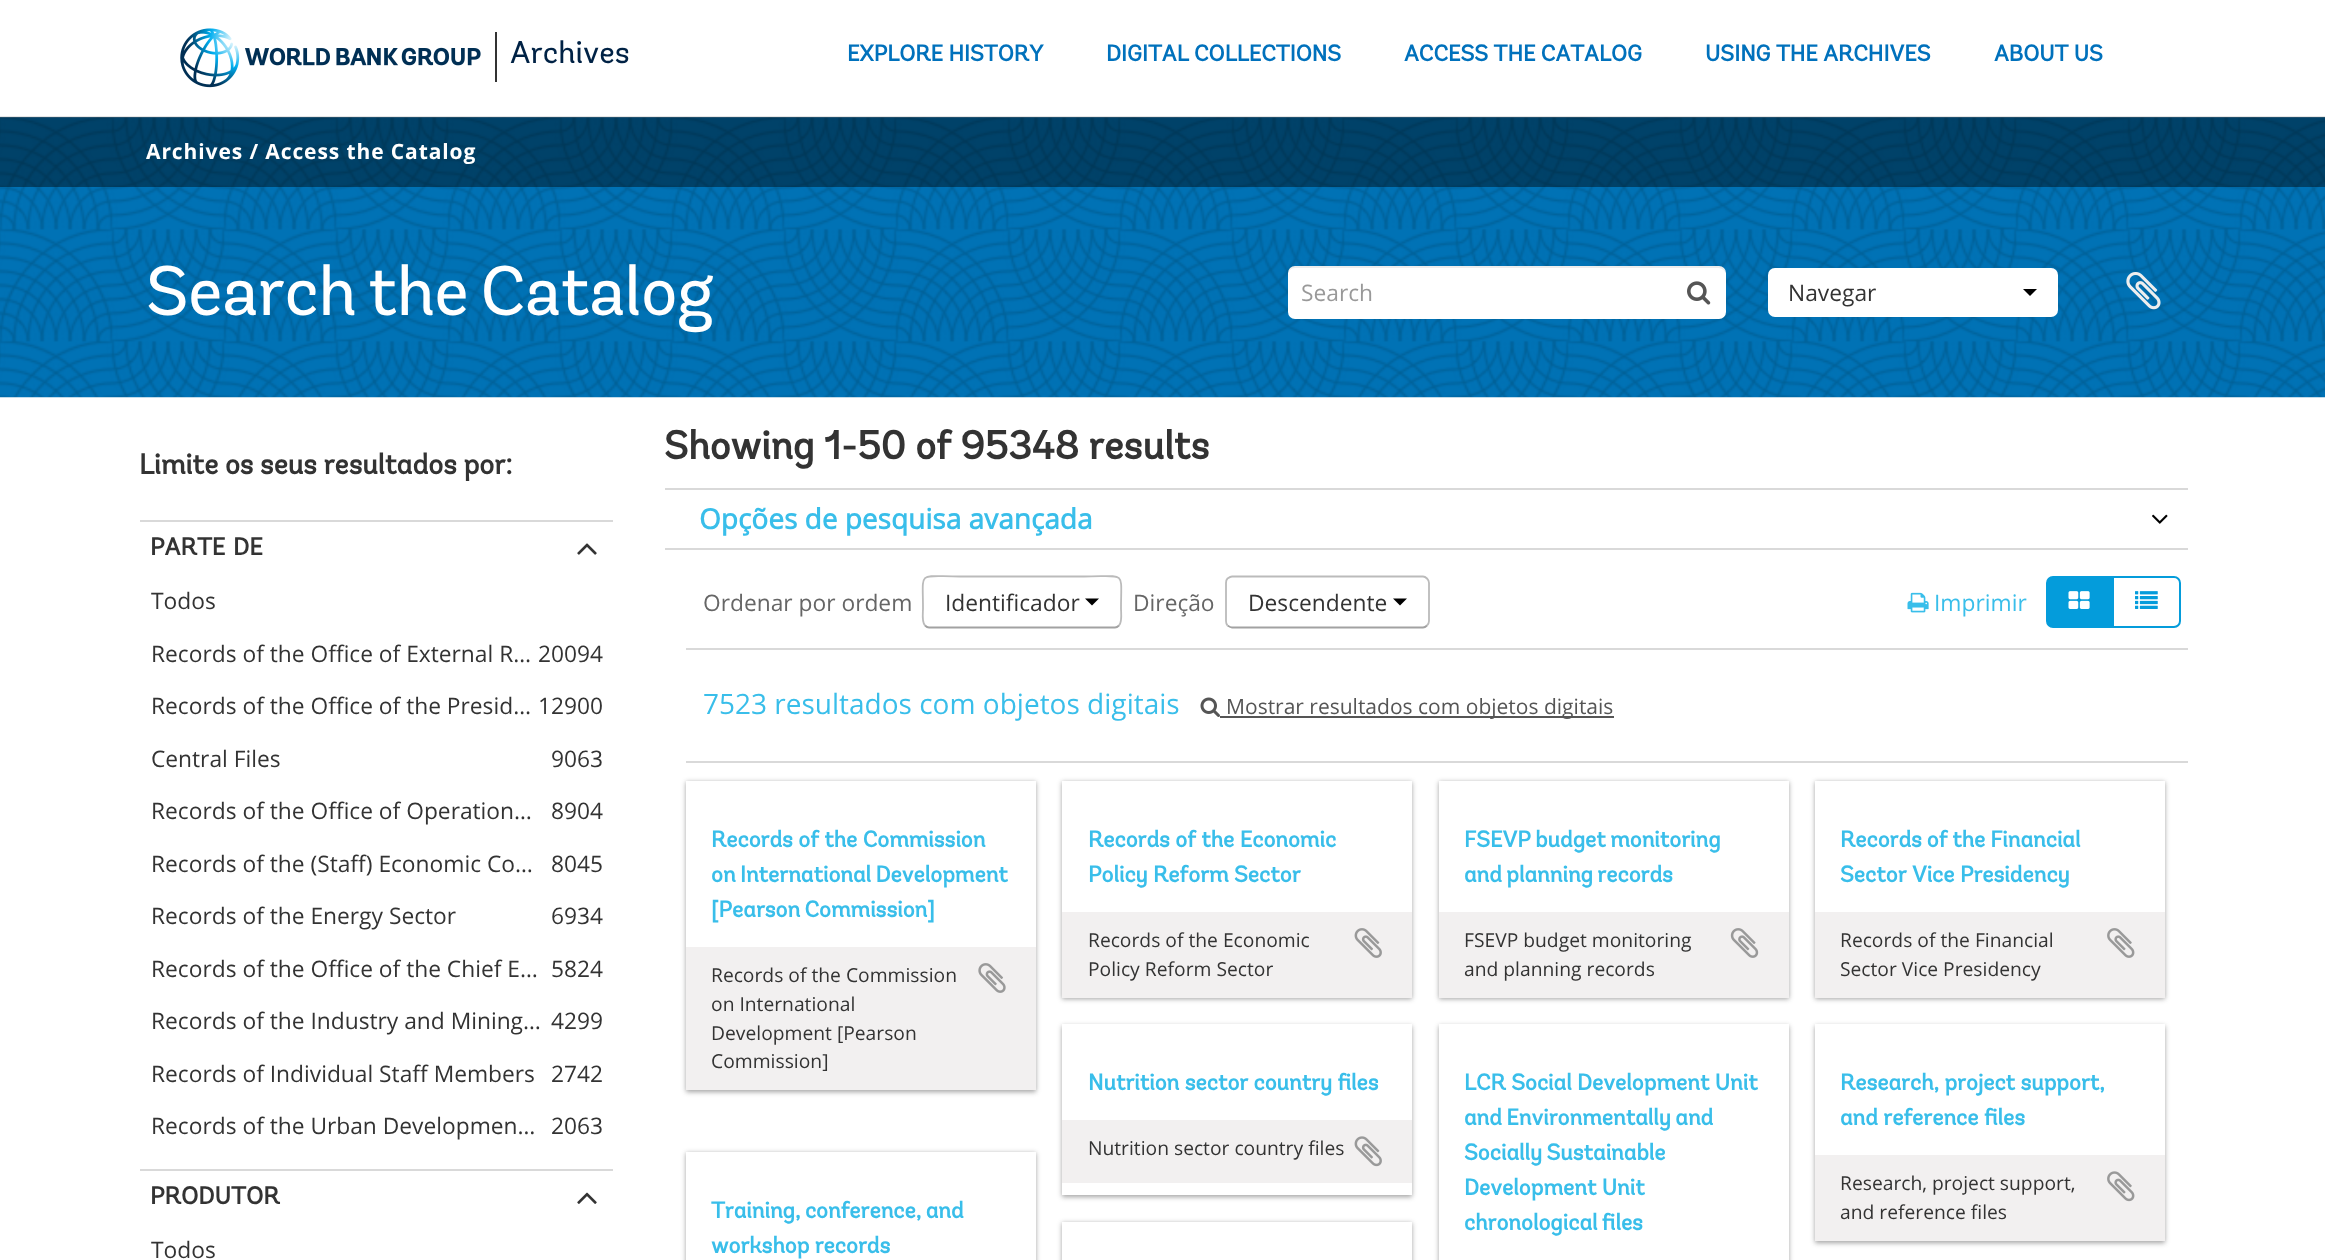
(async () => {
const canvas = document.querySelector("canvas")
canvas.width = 2325
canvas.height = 1260
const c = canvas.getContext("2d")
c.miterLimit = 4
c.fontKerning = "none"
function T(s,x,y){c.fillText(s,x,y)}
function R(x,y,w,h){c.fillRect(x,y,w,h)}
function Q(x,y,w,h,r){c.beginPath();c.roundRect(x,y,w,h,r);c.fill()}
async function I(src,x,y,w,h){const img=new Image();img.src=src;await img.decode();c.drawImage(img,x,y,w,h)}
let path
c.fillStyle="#fff"
R(0,0,2325,1260)
c.fillStyle="#e6e6e6"
R(0,116,2325,2)
await I("1.png",180,28,301,60)
c.fillStyle="#333"
R(495,32,2,50)
c.font="31.5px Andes"
c.fillStyle="#002245"
T("Archives",510,63)
c.font="bold 22.75px Andes"
c.fillStyle="#0071bc"
T("EXPLORE HISTORY",847,61)
T("DIGITAL COLLECTIONS",1106,61)
T("ACCESS THE CATALOG",1404,61)
T("USING THE ARCHIVES",1705,61)
T("ABOUT US",1994,61)
await I("2.png",0,117,2325,281)
c.fillStyle="#0000006b"
R(0,117,2325,70)
c.letterSpacing="0.9px"
c.font="bold 21px Open Sans"
c.fillStyle="#fff"
T("Archives / Access the Catalog",146,159)
c.letterSpacing="-0.5px"
c.wordSpacing="-4px"
c.font="70px Andes"
T("Search the Catalog",146,315)
Q(1288,266,438,53,7)
c.fillStyle="#00000012"
path = new Path2D("M1295 268h423c4 0 8 3 8 7c0-4-2-9-7-9h-424c-5 0-7 5-7 9c0-4 3-7 7-7z")
c.fill(path)
c.letterSpacing="0px"
c.wordSpacing="0px"
c.font="22.75px Open Sans"
c.fillStyle="#999"
T("Search",1301,301)
await I("3.png",1687,281,24,24)
c.fillStyle="#fff"
Q(1768,268,290,49,7)
c.fillStyle="#ffffff33"
path = new Path2D("M1774 270h277c4 0 7 3 7 6v-1c0-4-3-7-7-7h-276c-4 0-7 3-7 7v1c0-3 3-6 6-6z")
c.fill(path)
c.fillStyle="#333"
T("Navegar",1788,301)
c.fillStyle="#000"
path = new Path2D("M2023 289h14l-7 7z")
c.fill(path)
await I("4.png",2126,272,35,38)
c.font="bold 28.5px Andes"
c.fillStyle="#333"
T("Limite os seus resultados por:",139,474)
c.fillStyle="#d9d9d9"
R(140,520,473,2)
c.font="bold 24.5px Andes"
c.fillStyle="#333"
T("PARTE",150,555)
T("DE",233,555)
await I("5.png",577,543,20,12)
c.font="22.75px Open Sans"
T("Todos",151,609)
T("Records of the Office of External R…",151,662)
T("20094",538,662)
T("Records of the Office of the Presid…",151,714)
T("12900",538,714)
T("Central Files",151,767)
T("9063",551,767)
T("Records of the Office of Operation…",151,819)
T("8904",551,819)
T("Records of the (Staff) Economic Co…",151,872)
T("8045",551,872)
T("Records of the Energy Sector",151,924)
T("6934",551,924)
T("Records of the Office of the Chief E…",151,977)
T("5824",551,977)
T("Records of the Industry and Mining…",151,1029)
T("4299",551,1029)
T("Records of Individual Staff Members",151,1082)
T("2742",551,1082)
T("Records of the Urban Developmen…",151,1134)
T("2063",551,1134)
c.fillStyle="#d9d9d9"
R(140,1169,473,2)
c.font="bold 24.5px Andes"
c.fillStyle="#333"
T("PRODUTOR",150,1204)
await I("6.png",577,1192,20,12)
c.font="22.75px Open Sans"
T("Todos",151,1258)
c.font="bold 39.75px Andes"
T("Showing 1-50 of 95348 results",664,459)
c.fillStyle="#d9d9d9"
R(665,488,1523,2)
R(665,548,1523,2)
c.font="bold 28px 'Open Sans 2'"
c.fillStyle="#39beea"
T("Opções de pesquisa avançada",699,529)
await I("7.png",2152,514,16,10)
c.font="22.75px Open Sans"
c.fillStyle="#666"
T("Ordenar por ordem",703,611)
path = new Path2D("M1119 625.5c-1 1-2.5 2-4 2h-186c-1.5 0-3-1-4-2")
c.strokeStyle="#a2a2a2"
c.lineWidth=1.8
c.stroke(path)
path = new Path2D("M925 625.5c-3.5-3.5-2-13-2-17c0-39-6-32 37-32h124c43 0 37-7 37 32c0 4 1.5 13.5-2 17")
c.strokeStyle="#bbb"
c.stroke(path)
c.fillStyle="#333"
T("Identificador",945,611)
c.fillStyle="#000"
path = new Path2D("M1085 598.5h14l-7 7z")
c.fill(path)
c.fillStyle="#666"
T("Direção",1133,611)
path = new Path2D("M1427 625.5c-1 1-2.5 2-4 2h-191c-1.5 0-3-1-4.5-2")
c.strokeStyle="#a2a2a2"
c.stroke(path)
path = new Path2D("M1227.5 625.5c-1-1-1.5-2.5-1.5-4.5v-38c0-2 .5-3.5 1.5-4.5c1.5-1 3-2 4.5-2h191c1.5 0 3 1 4 2c1 1 2 2.5 2 4.5v38c0 2-1 3.5-2 4.5")
c.strokeStyle="#bbb"
c.stroke(path)
c.fillStyle="#333"
T("Descendente",1248,611)
c.fillStyle="#000"
path = new Path2D("M1393 598.5h14l-7 7z")
c.fill(path)
await I("8.png",1907,592,22,21)
c.fillStyle="#39beea"
T("Imprimir",1934,611)
c.beginPath()
c.roundRect(2113,577,67,50,[0,6,6,0])
c.strokeStyle="#049cdb"
c.lineWidth=2
c.stroke()
c.fillStyle="#049cdb"
c.beginPath()
c.roundRect(2047,577,66,50,[6,0,0,6])
c.fill()
c.stroke()
await I("9.png",2068,591,22,18)
await I("10.png",2135,591,23,18)
c.fillStyle="#d9d9d9"
R(686,648,1502,2)
R(686,761,1502,2)
c.font="28px Open Sans"
c.fillStyle="#39beea"
T("7523 resultados com objetos digitais",703,714)
await I("11.png",1200,697,20,20)
c.fillStyle="#555"
R(1220,716,394,2)
c.font="21px Open Sans"
T("Mostrar resultados com objetos digitais",1226,714)
c.save()
path = new Path2D("M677 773h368v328h-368zm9 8h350v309h-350z")
c.clip(path,"evenodd")
c.fillStyle="#19191966"
c.filter="blur(2.5px)"
c.beginPath()
c.rect(686,782,350,310)
c.fill()
c.filter="none"
c.restore()
c.font="bold 22.75px Andes"
c.fillStyle="#39beea"
T("Records of the Commission",711,847)
c.wordSpacing="-1px"
T("on International Development",711,882)
T("[Pearson Commission]",711,917)
c.fillStyle="#f2f0f0"
R(686,947,350,143)
c.wordSpacing="0px"
c.font="19.25px Open Sans"
c.fillStyle="#333"
T("Records of the Commission",711,982)
await I("12.png",978,963,28,30)
T("on International",711,1011)
T("Development [Pearson",711,1040)
T("Commission]",711,1068)
c.fillStyle="#19191966"
c.filter="blur(2.5px)"
c.beginPath()
c.rect(1062,782,350,217)
c.fill()
c.filter="none"
c.fillStyle="#fff"
R(1062,781,350,131)
c.font="bold 22.75px Andes"
c.fillStyle="#39beea"
T("Records of the Economic",1088,847)
T("Policy Reform Sector",1088,882)
c.fillStyle="#f2f0f0"
R(1062,912,350,86)
c.font="19.25px Open Sans"
c.fillStyle="#333"
T("Records of the Economic",1088,947)
await I("13.png",1354,928,28,30)
T("Policy Reform Sector",1088,976)
c.fillStyle="#19191966"
c.filter="blur(2.5px)"
c.beginPath()
c.rect(1439,782,350,217)
c.fill()
c.filter="none"
c.fillStyle="#fff"
R(1439,781,350,131)
c.wordSpacing="-1px"
c.font="bold 22.75px Andes"
c.fillStyle="#39beea"
T("FSEVP budget monitoring",1464,847)
T("and planning records",1464,882)
c.fillStyle="#f2f0f0"
R(1439,912,350,86)
c.wordSpacing="0px"
c.font="19.25px Open Sans"
c.fillStyle="#333"
T("FSEVP budget monitoring",1464,947)
await I("14.png",1730,928,29,30)
T("and planning records",1464,976)
c.fillStyle="#19191966"
c.filter="blur(2.5px)"
c.beginPath()
c.rect(1815,782,350,217)
c.fill()
c.filter="none"
c.fillStyle="#fff"
R(1815,781,350,131)
c.wordSpacing="-0.5px"
c.font="bold 22.75px Andes"
c.fillStyle="#39beea"
T("Records of the Financial",1840,847)
c.wordSpacing="0px"
T("Sector Vice Presidency",1840,882)
c.fillStyle="#f2f0f0"
R(1815,912,350,86)
c.font="19.25px Open Sans"
c.fillStyle="#333"
T("Records of the Financial",1840,947)
await I("15.png",2107,928,28,30)
T("Sector Vice Presidency",1840,976)
c.fillStyle="#19191966"
c.filter="blur(2.5px)"
c.beginPath()
c.rect(1062,1026,350,171)
c.fill()
c.filter="none"
c.fillStyle="#fff"
R(1062,1024,350,171)
c.font="bold 22.75px Andes"
c.fillStyle="#39beea"
T("Nutrition sector country files",1088,1090)
c.fillStyle="#f2f0f0"
R(1062,1120,350,63)
c.font="19.25px Open Sans"
c.fillStyle="#333"
T("Nutrition sector country files",1088,1155)
await I("16.png",1354,1136,28,31)
c.fillStyle="#19191966"
c.filter="blur(2.5px)"
c.beginPath()
c.rect(1439,1026,350,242)
c.fill()
c.filter="none"
c.fillStyle="#fff"
R(1439,1024,350,236)
c.font="bold 22.75px Andes"
c.fillStyle="#39beea"
T("LCR Social Development Unit",1464,1090)
c.wordSpacing="-1px"
T("and Environmentally and",1464,1125)
T("Socially Sustainable",1464,1160)
c.wordSpacing="0px"
T("Development Unit",1464,1195)
c.wordSpacing="-1px"
T("chronological files",1464,1230)
c.fillStyle="#19191966"
c.filter="blur(2.5px)"
c.beginPath()
c.rect(1815,1026,350,217)
c.fill()
c.filter="none"
c.fillStyle="#fff"
R(1815,1024,350,131)
c.wordSpacing="0px"
c.fillStyle="#39beea"
T("Research, project support,",1840,1090)
T("and reference files",1840,1125)
c.fillStyle="#f2f0f0"
R(1815,1155,350,86)
c.font="19.25px Open Sans"
c.fillStyle="#333"
T("Research, project support,",1840,1190)
await I("17.png",2107,1171,28,31)
T("and reference files",1840,1219)
c.save()
path = new Path2D("M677 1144h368v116h-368zm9 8h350v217h-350z")
c.clip(path,"evenodd")
c.fillStyle="#19191966"
c.filter="blur(2.5px)"
c.beginPath()
c.rect(686,1153,350,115)
c.fill()
c.filter="none"
c.restore()
c.wordSpacing="-1px"
c.font="bold 22.75px Andes"
c.fillStyle="#39beea"
T("Training, conference, and",711,1218)
c.wordSpacing="0px"
T("workshop records",711,1253)
c.fillStyle="#19191966"
c.filter="blur(2.5px)"
c.beginPath()
c.rect(1062,1223,350,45)
c.fill()
c.filter="none"
c.fillStyle="#fff"
R(1062,1222,350,38)
})()
